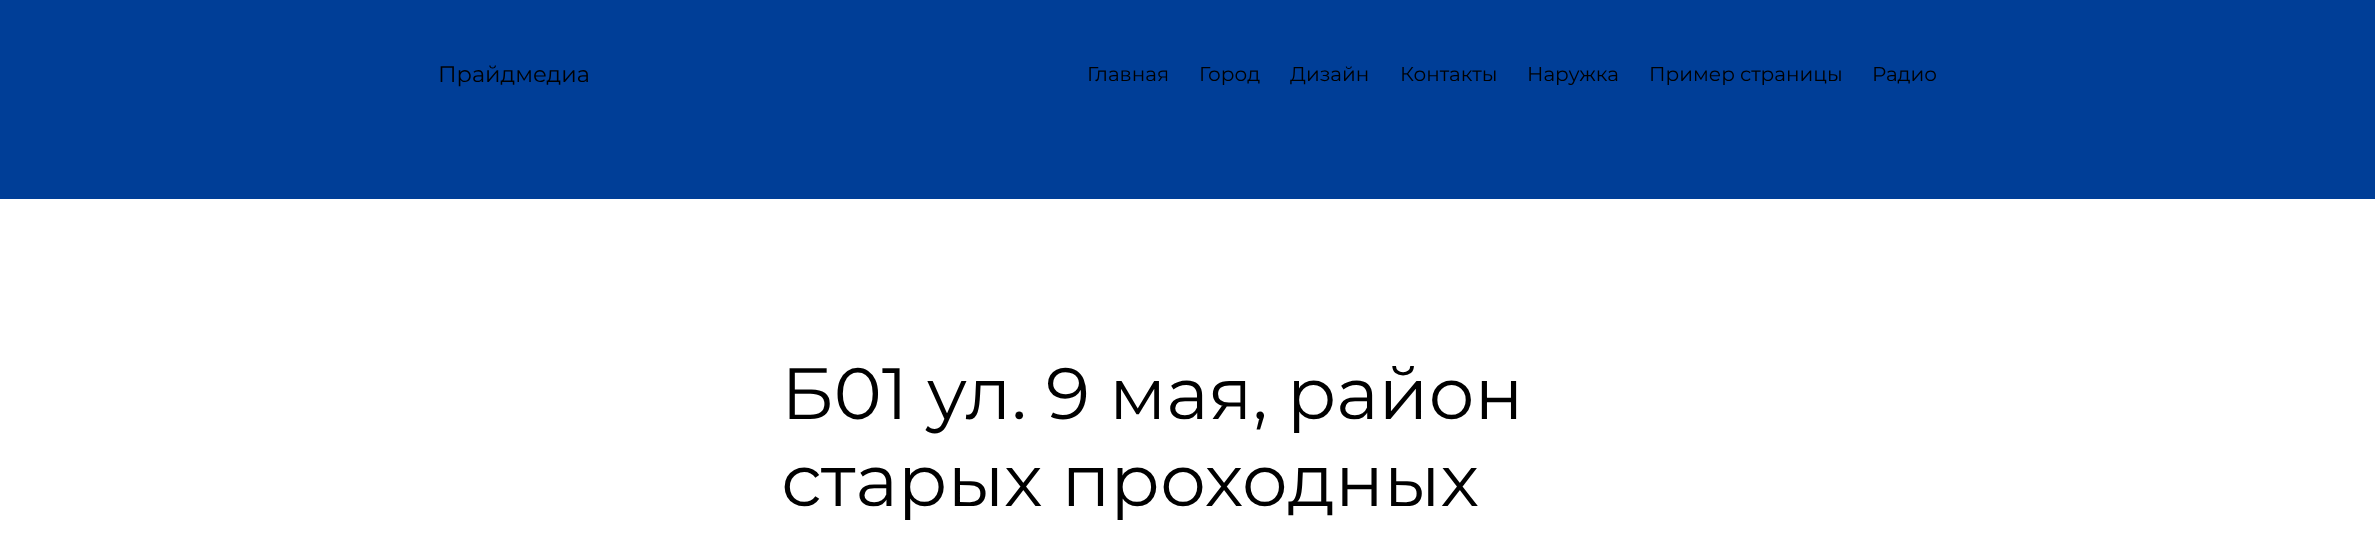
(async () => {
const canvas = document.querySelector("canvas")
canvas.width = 2375
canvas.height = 546
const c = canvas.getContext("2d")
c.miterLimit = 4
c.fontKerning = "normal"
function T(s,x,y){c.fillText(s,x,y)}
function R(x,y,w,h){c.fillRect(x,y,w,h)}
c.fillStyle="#fff"
R(0,0,2375,546)
c.fillStyle="#003e97"
R(0,0,2375,199)
c.font="22.5px Montserrat"
c.fillStyle="#000"
T("Прайдмедиа",438,82)
c.font="20px Montserrat"
T("Главная",1087,81)
T("Город",1199,81)
T("Дизайн",1290,81)
T("Контакты",1400,81)
T("Наружка",1527,81)
T("Пример страницы",1649,81)
T("Радио",1872,81)
c.font="72.5px Montserrat"
T("Б01 ул. 9 мая, район",781,419)
T("старых проходных",781,506)
})()
